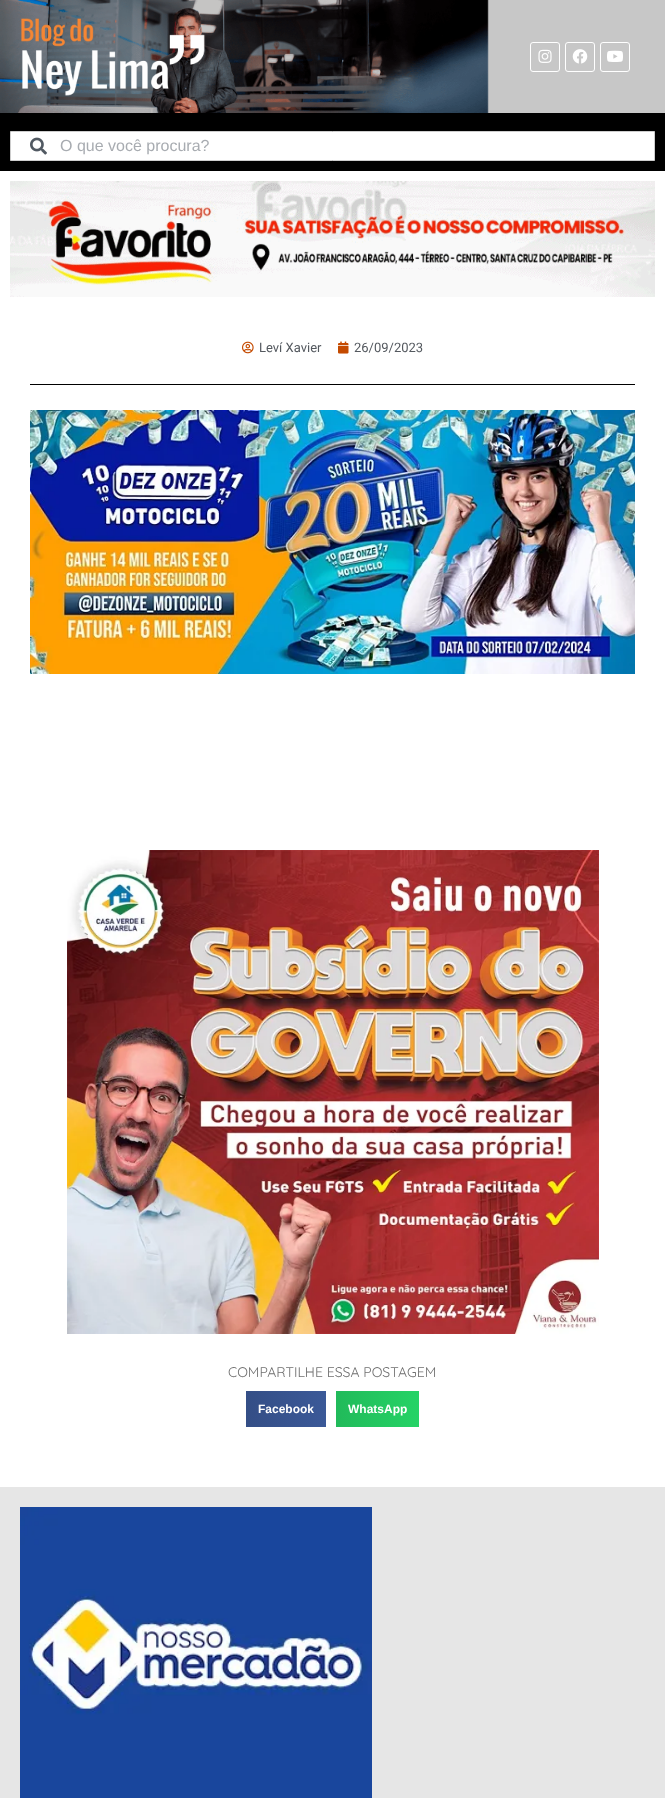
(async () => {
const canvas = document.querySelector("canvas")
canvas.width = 665
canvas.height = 1798
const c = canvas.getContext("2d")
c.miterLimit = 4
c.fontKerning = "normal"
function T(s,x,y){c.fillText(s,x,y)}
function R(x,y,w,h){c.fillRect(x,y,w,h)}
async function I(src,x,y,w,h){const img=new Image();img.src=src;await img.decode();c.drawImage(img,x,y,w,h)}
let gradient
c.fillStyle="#fff"
R(0,0,665,1798)
c.fillStyle="#c7c7c7"
R(487,0,178,113)
await I("1.png",0,0,489,113)
await I("2.png",21,18,184,78)
c.beginPath()
c.roundRect(530.5,42.5,29,29,2.5)
c.strokeStyle="#fff"
c.stroke()
await I("3.png",538,49,14,14)
c.beginPath()
c.roundRect(565.5,42.5,29,29,2.5)
c.stroke()
await I("4.png",572,49,16,15)
c.beginPath()
c.roundRect(600.5,42.5,29,29,2.5)
c.stroke()
await I("5.png",607,50,16,12)
c.fillStyle="#000"
R(0,113,665,58)
c.fillStyle="#fff"
c.beginPath()
c.rect(10.5,131.5,644,29)
c.fill()
c.strokeStyle="#cdcdcd"
c.stroke()
await I("6.png",30,137,17,18)
c.font="16px Liberation Sans"
c.fillStyle="#a8acb1"
T("O que você procura?",60,151)
await I("7.png",10,181,645,116)
await I("8.png",242,341,12,13)
c.font="13px Roboto"
c.fillStyle="#54595f"
T("Leví Xavier",259,352)
await I("9.png",338,341,11,13)
T("26/09/2023",354,352)
c.fillStyle="#000"
R(30,384,605,1)
await I("10.png",30,410,605,264)
await I("11.png",67,850,532,484)
c.font="14px Quicksand"
c.fillStyle="#707070"
T("COMPARTILHE ESSA POSTAGEM",228,1377)
gradient = c.createLinearGradient(246,1409,326,1409)
gradient.addColorStop(0,"#344e86")
gradient.addColorStop(1,"#3b5998")
c.fillStyle = gradient
R(246,1391,80,36)
c.font="bold 12px Liberation Sans"
c.fillStyle="#fff"
T("Facebook",258,1413)
gradient = c.createLinearGradient(336,1409,419,1409)
gradient.addColorStop(0,"#21ba5a")
gradient.addColorStop(1,"#25d366")
c.fillStyle = gradient
R(336,1391,83,36)
c.fillStyle="#fff"
T("WhatsApp",348,1413)
c.fillStyle="#e6e6e6"
R(0,1487,665,311)
await I("12.png",20,1507,352,291)
})()
